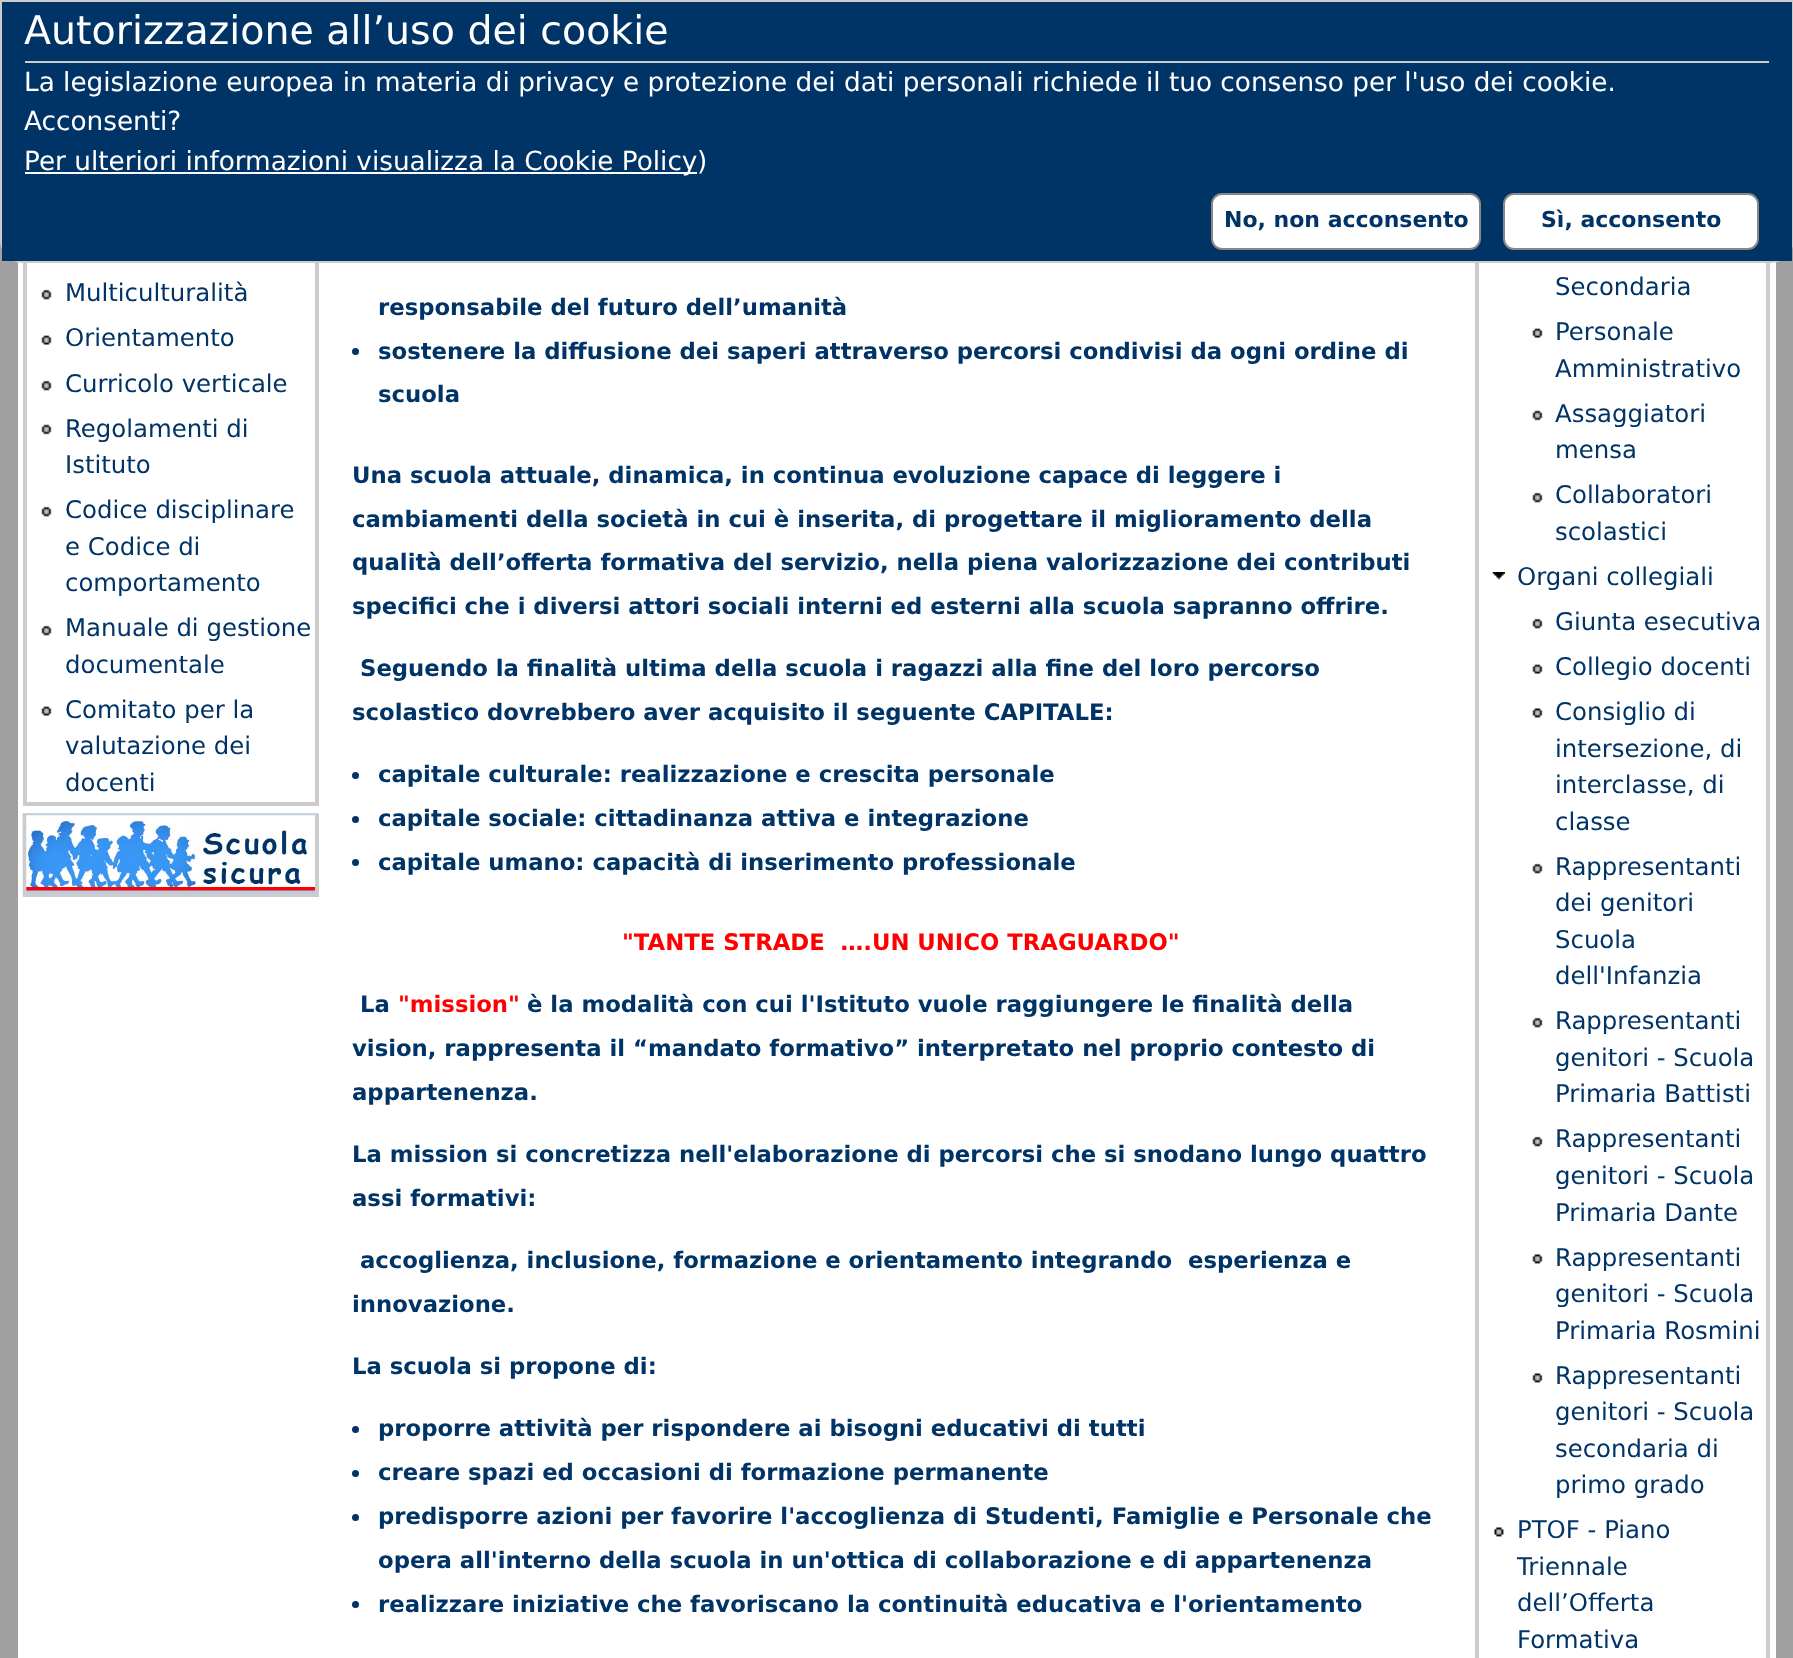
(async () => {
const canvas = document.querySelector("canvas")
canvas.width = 1793
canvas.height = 1658
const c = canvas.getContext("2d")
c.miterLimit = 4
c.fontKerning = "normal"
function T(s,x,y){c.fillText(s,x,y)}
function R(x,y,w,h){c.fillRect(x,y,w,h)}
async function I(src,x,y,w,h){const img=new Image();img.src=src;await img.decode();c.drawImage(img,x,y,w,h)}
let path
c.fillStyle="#a0a0a0"
R(0,0,1793,1658)
c.fillStyle="#fff"
R(18,262,1758,1396)
path = new Path2D("M1 1h1792v239c0 12-10 22-22 22h-1748c-12 0-22-10-22-22z")
c.strokeStyle="#ccc"
c.lineWidth=2
c.stroke(path)
c.fillStyle="#036"
R(2,2,1790,259)
c.fillStyle="#ccc"
R(25,61,1744,2)
c.font="39.5px DejaVu Sans"
c.fillStyle="#fff"
T("Autorizzazione all’uso dei cookie",24,44)
c.font="26.3px DejaVu Sans"
T("La legislazione europea in materia di privacy e protezione dei dati personali richiede il tuo consenso per l'uso dei cookie.",24,91)
T("Acconsenti?",24,130)
R(25,172,672,2)
T("Per ulteriori informazioni visualizza la Cookie Policy",24,170)
T(")",697,170)
c.beginPath()
c.roundRect(1212,194,268,55,10)
c.fill()
c.strokeStyle="#888"
c.stroke()
c.font="bold 22px DejaVu Sans"
c.fillStyle="#036"
T("No, non acconsento",1224,227)
c.fillStyle="#fff"
c.beginPath()
c.roundRect(1504,194,254,55,10)
c.fill()
c.stroke()
c.fillStyle="#036"
T("Sì, acconsento",1541,227)
c.fillStyle="#ccc"
R(315,263,4,542)
R(23,802,296,4)
R(23,263,4,542)
await I("1.png",41,289,11,11)
c.font="24.4px DejaVu Sans"
c.fillStyle="#036"
T("Multiculturalità",65,301)
await I("2.png",41,335,11,10)
T("Orientamento",65,346)
await I("1.png",41,380,11,11)
T("Curricolo verticale",65,392)
await I("3.png",41,424,11,11)
T("Regolamenti di",65,437)
T("Istituto",65,473)
await I("1.png",41,506,11,11)
T("Codice disciplinare",65,518)
T("e Codice di",65,555)
T("comportamento",65,591)
await I("1.png",41,625,11,11)
T("Manuale di gestione",65,636)
T("documentale",65,673)
await I("2.png",41,706,11,10)
T("Comitato per la",65,718)
T("valutazione dei",65,754)
T("docenti",65,791)
await I("4.png",22,813,297,83)
c.fillStyle="#ccc"
R(315,814,4,82)
R(23,893,296,4)
R(23,814,4,82)
R(26,814,289,2)
await I("5.png",26,815,289,76)
c.font="bold 22.75px DejaVu Sans"
c.fillStyle="#036"
T("responsabile del futuro dell’umanità",378,315)
c.beginPath()
c.arc(355.5,351.5,3.5,0,7)
c.fill()
T("sostenere la diffusione dei saperi attraverso percorsi condivisi da ogni ordine di",378,359)
T("scuola",378,402)
T("Una scuola attuale, dinamica, in continua evoluzione capace di leggere i",352,483)
T("cambiamenti della società in cui è inserita, di progettare il miglioramento della",352,527)
T("qualità dell’offerta formativa del servizio, nella piena valorizzazione dei contributi",352,570)
T("specifici che i diversi attori sociali interni ed esterni alla scuola sapranno offrire.",352,614)
T("Seguendo la finalità ultima della scuola i ragazzi alla fine del loro percorso",360,676)
T("scolastico dovrebbero aver acquisito il seguente CAPITALE:",352,720)
c.beginPath()
c.arc(355.5,775.5,3.5,0,7)
c.fill()
T("capitale culturale: realizzazione e crescita personale",378,782)
c.beginPath()
c.arc(355.5,819.5,3.5,0,7)
c.fill()
T("capitale sociale: cittadinanza attiva e integrazione",378,826)
c.beginPath()
c.arc(355.5,862.5,3.5,0,7)
c.fill()
T("capitale umano: capacità di inserimento professionale",378,870)
c.fillStyle="#f00"
T("\"TANTE STRADE  ….UN UNICO TRAGUARDO\"",622,950)
c.fillStyle="#036"
T("La",360,1012)
c.fillStyle="#f00"
T("\"mission\"",398,1012)
c.fillStyle="#036"
T("è la modalità con cui l'Istituto vuole raggiungere le finalità della",527,1012)
T("vision, rappresenta il “mandato formativo” interpretato nel proprio contesto di",352,1056)
T("appartenenza.",352,1100)
T("La mission si concretizza nell'elaborazione di percorsi che si snodano lungo quattro",352,1162)
T("assi formativi:",352,1206)
T("accoglienza, inclusione, formazione e orientamento integrando  esperienza e",360,1268)
T("innovazione.",352,1312)
T("La scuola si propone di:",352,1374)
c.beginPath()
c.arc(355.5,1429.5,3.5,0,7)
c.fill()
T("proporre attività per rispondere ai bisogni educativi di tutti",378,1436)
c.beginPath()
c.arc(355.5,1473.5,3.5,0,7)
c.fill()
T("creare spazi ed occasioni di formazione permanente",378,1480)
c.beginPath()
c.arc(355.5,1517.5,3.5,0,7)
c.fill()
T("predisporre azioni per favorire l'accoglienza di Studenti, Famiglie e Personale che",378,1524)
T("opera all'interno della scuola in un'ottica di collaborazione e di appartenenza",378,1568)
c.beginPath()
c.arc(355.5,1604.5,3.5,0,7)
c.fill()
T("realizzare iniziative che favoriscano la continuità educativa e l'orientamento",378,1612)
c.fillStyle="#ccc"
R(1766,263,4,1395)
R(1475,263,4,1395)
c.font="24.4px DejaVu Sans"
c.fillStyle="#036"
T("Secondaria",1555,295)
await I("2.png",1532,328,11,10)
T("Personale",1555,340)
T("Amministrativo",1555,377)
await I("3.png",1532,410,11,11)
T("Assaggiatori",1555,422)
T("mensa",1555,458)
await I("1.png",1532,492,11,11)
T("Collaboratori",1555,503)
T("scolastici",1555,540)
await I("6.png",1492,572,13,8)
T("Organi collegiali",1517,585)
await I("1.png",1532,618,11,11)
T("Giunta esecutiva",1555,630)
await I("2.png",1532,664,11,10)
T("Collegio docenti",1555,675)
await I("7.png",1532,708,11,10)
T("Consiglio di",1555,720)
T("intersezione, di",1555,757)
T("interclasse, di",1555,793)
T("classe",1555,830)
await I("1.png",1532,863,11,11)
T("Rappresentanti",1555,875)
T("dei genitori",1555,911)
T("Scuola",1555,948)
T("dell'Infanzia",1555,984)
await I("1.png",1532,1017,11,11)
T("Rappresentanti",1555,1029)
T("genitori - Scuola",1555,1066)
T("Primaria Battisti",1555,1102)
await I("1.png",1532,1136,11,11)
T("Rappresentanti",1555,1147)
T("genitori - Scuola",1555,1184)
T("Primaria Dante",1555,1221)
await I("7.png",1532,1254,11,10)
T("Rappresentanti",1555,1266)
T("genitori - Scuola",1555,1302)
T("Primaria Rosmini",1555,1339)
await I("7.png",1532,1373,11,10)
T("Rappresentanti",1555,1384)
T("genitori - Scuola",1555,1420)
T("secondaria di",1555,1457)
T("primo grado",1555,1493)
await I("8.png",1494,1527,10,10)
T("PTOF - Piano",1517,1538)
T("Triennale",1517,1575)
T("dell’Offerta",1517,1611)
T("Formativa",1517,1648)
})()
